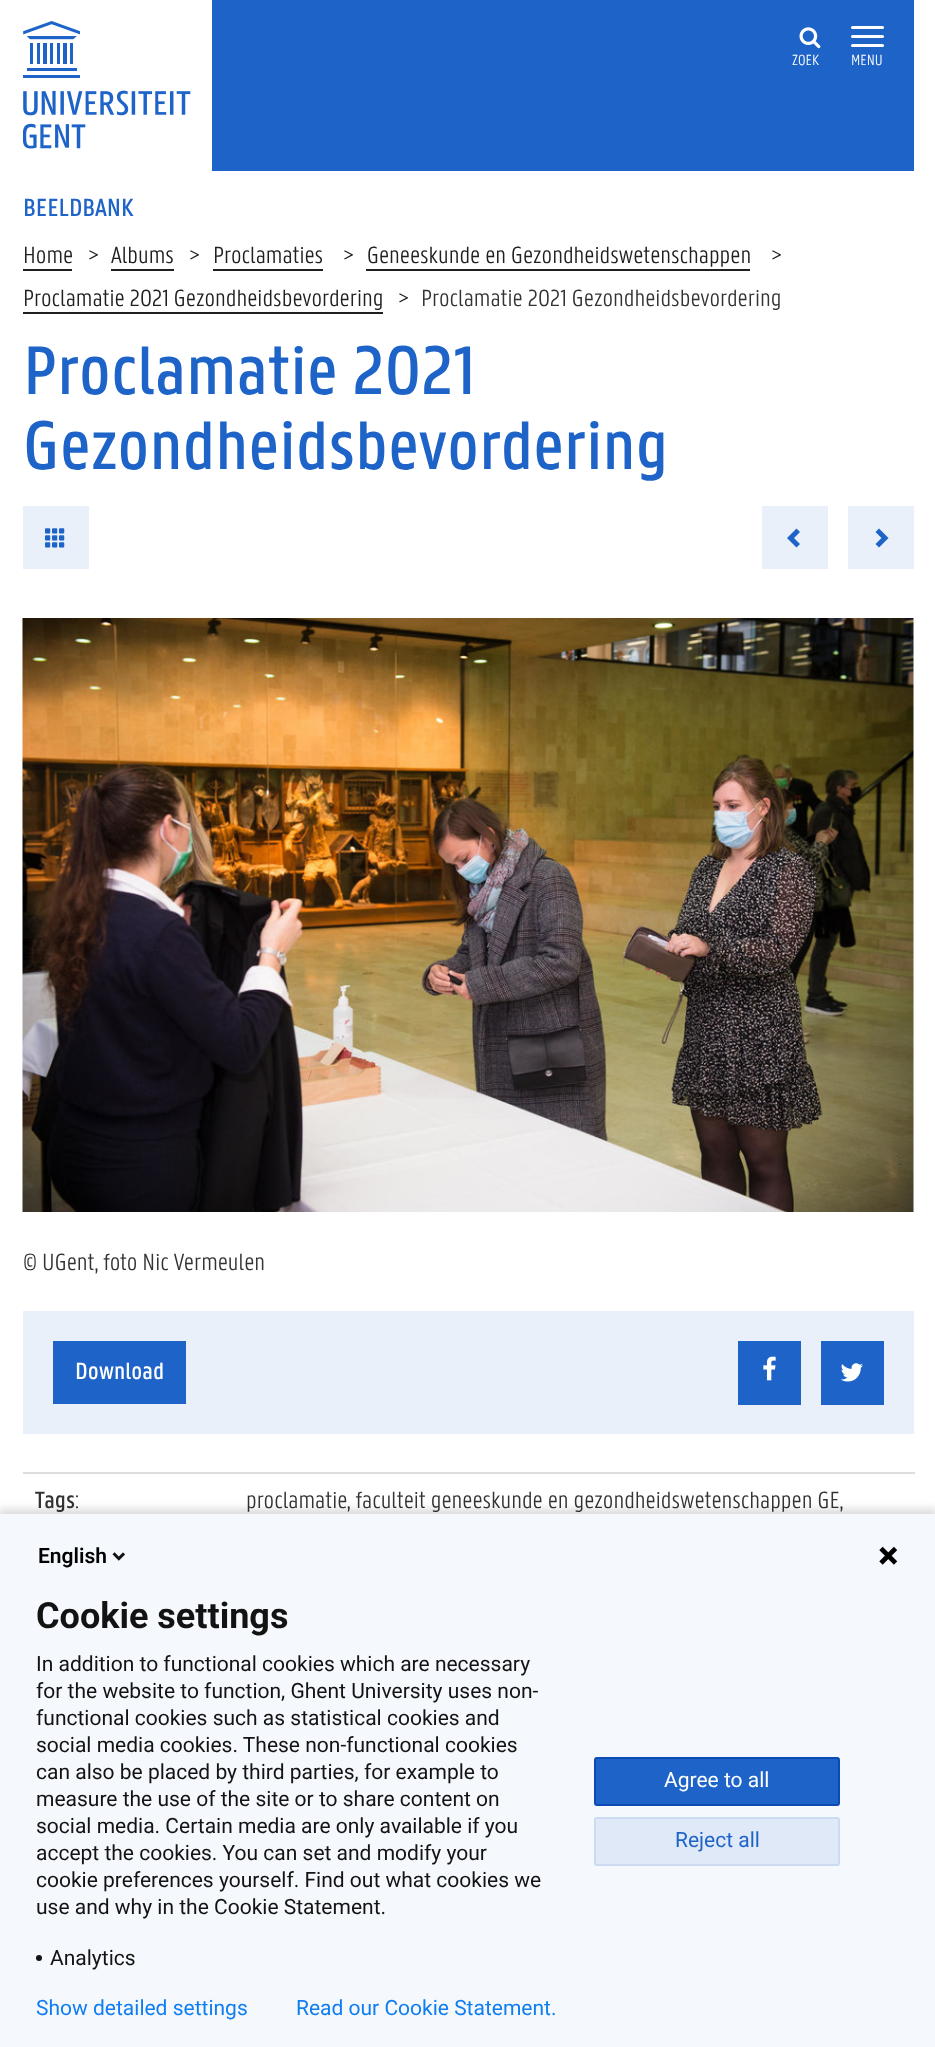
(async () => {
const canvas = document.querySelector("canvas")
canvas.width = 935
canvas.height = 2047
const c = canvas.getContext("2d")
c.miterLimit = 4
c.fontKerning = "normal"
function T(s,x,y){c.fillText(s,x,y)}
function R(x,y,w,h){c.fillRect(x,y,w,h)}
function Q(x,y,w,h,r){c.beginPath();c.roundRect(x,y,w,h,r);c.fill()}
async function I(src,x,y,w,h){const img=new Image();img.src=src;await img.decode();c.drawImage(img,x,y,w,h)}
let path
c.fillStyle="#fff"
R(0,0,935,2047)
c.fillStyle="#1e64c8"
R(212,0,702,171)
await I("1.png",23,21,168,128)
await I("2.png",799,27,22,22)
c.font="300 16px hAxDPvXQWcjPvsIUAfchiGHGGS"
c.fillStyle="#fff"
T("ZOEK",792,65)
Q(851,26,33,3,1.5)
Q(851,35,33,3,1.5)
Q(851,44,33,3,1.5)
T("MENU",851,65)
c.font="500 27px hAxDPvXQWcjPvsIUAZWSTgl"
c.fillStyle="#1e64c8"
T("BEELDBANK",23,216)
c.font="300 25.5px hAxDPvXQWcjPvsIUAfchiGHGGS"
c.fillStyle="#202020"
T("Home",23,263)
R(23,269,49,2)
T(">",88,263)
T("Albums",111,263)
R(111,269,63,2)
T(">",189,263)
T("Proclamaties",213,263)
R(213,269,110,2)
T(">",343,263)
T("Geneeskunde en Gezondheidswetenschappen",367,263)
R(366,269,384,2)
T(">",771,263)
T("Proclamatie 2021 Gezondheidsbevordering",23,306)
R(23,312,360,2)
T(">",398,306)
c.fillStyle="#333"
T("Proclamatie 2021 Gezondheidsbevordering",421,306)
c.font="500 75px hAxDPvXQWcjPvsIUAZWSTgl"
c.fillStyle="#1e64c8"
T("Proclamatie 2021",23,394)
T("Gezondheidsbevordering",23,469)
c.fillStyle="#e9f0fa"
R(23,506,66,63)
await I("3.png",45,528,20,20)
R(762,506,66,63)
c.fillStyle="#1e64c8"
path = new Path2D("M800 532l-6 6l6 6l-3.5 3.5l-9.5-9.5l9.5-9.5z")
c.fill(path)
c.fillStyle="#e9f0fa"
R(848,506,66,63)
c.fillStyle="#1e64c8"
path = new Path2D("M888.5 538l-9.5 9.5l-3.5-3.5l6-6l-6-6l3.5-3.5z")
c.fill(path)
await I("4.png",22,618,892,594)
c.font="300 25.5px hAxDPvXQWcjPvsIUAfchiGHGGS"
c.fillStyle="#333"
T("© UGent, foto Nic Vermeulen",23,1270)
c.fillStyle="#e9f0fa"
R(23,1311,891,123)
c.fillStyle="#1e64c8"
R(53,1341,133,63)
c.font="500 25.5px hAxDPvXQWcjPvsIUAZWSTgl"
c.fillStyle="#fff"
T("Download",75,1379)
c.fillStyle="#1e64c8"
R(738,1341,63,64)
await I("5.png",763,1356,13,25)
R(821,1341,63,64)
await I("6.png",840,1363,23,19)
c.fillStyle="#333"
T("Tags",35,1508)
c.font="300 25.5px hAxDPvXQWcjPvsIUAfchiGHGGS"
T(":",75,1508)
c.fillStyle="#ddd"
R(23,1472,892,2)
c.fillStyle="#333"
T("proclamatie, faculteit geneeskunde en gezondheidswetenschappen GE,",246,1508)
c.fillStyle="#00000024"
c.filter="blur(4px)"
c.beginPath()
c.rect(-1,1509,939,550)
c.fill()
c.filter="none"
c.fillStyle="#f5f8fc"
R(0,1514,935,533)
c.font="600 21px Roboto"
c.fillStyle="#000"
T("English",38,1563)
await I("7.png",112,1552,13,9)
await I("8.png",879,1546,19,19)
c.font="bold 36px Roboto"
c.fillStyle="#131313"
T("Cookie settings",36,1628)
c.font="21px Roboto"
T("In addition to functional cookies which are necessary",36,1671)
T("for the website to function, Ghent University uses non-",36,1698)
T("functional cookies such as statistical cookies and",36,1725)
T("social media cookies. These non-functional cookies",36,1752)
T("can also be placed by third parties, for example to",36,1779)
T("measure the use of the site or to share content on",36,1806)
T("social media. Certain media are only available if you",36,1833)
T("accept the cookies. You can set and modify your",36,1860)
T("cookie preferences yourself. Find out what cookies we",36,1887)
T("use and why in the Cookie Statement.",36,1914)
c.beginPath()
c.arc(39,1958,3,0,7)
c.fill()
T("Analytics",50,1965)
c.fillStyle="#1e64c8"
c.beginPath()
c.roundRect(595,1758,244,47,2)
c.fill()
c.strokeStyle="#0b4bb3"
c.lineWidth=2
c.stroke()
c.fillStyle="#fff"
T("Agree to all",664,1787)
c.fillStyle="#e0e9f7"
Q(594,1817,246,49,3)
c.beginPath()
c.roundRect(595,1818,244,47,2)
c.strokeStyle="#1e64c81a"
c.stroke()
c.fillStyle="#1e64c8"
T("Reject all",675,1847)
c.fillStyle="#107ef1"
T("Show detailed settings",36,2015)
T("Read our Cookie Statement.",296,2015)
})()
